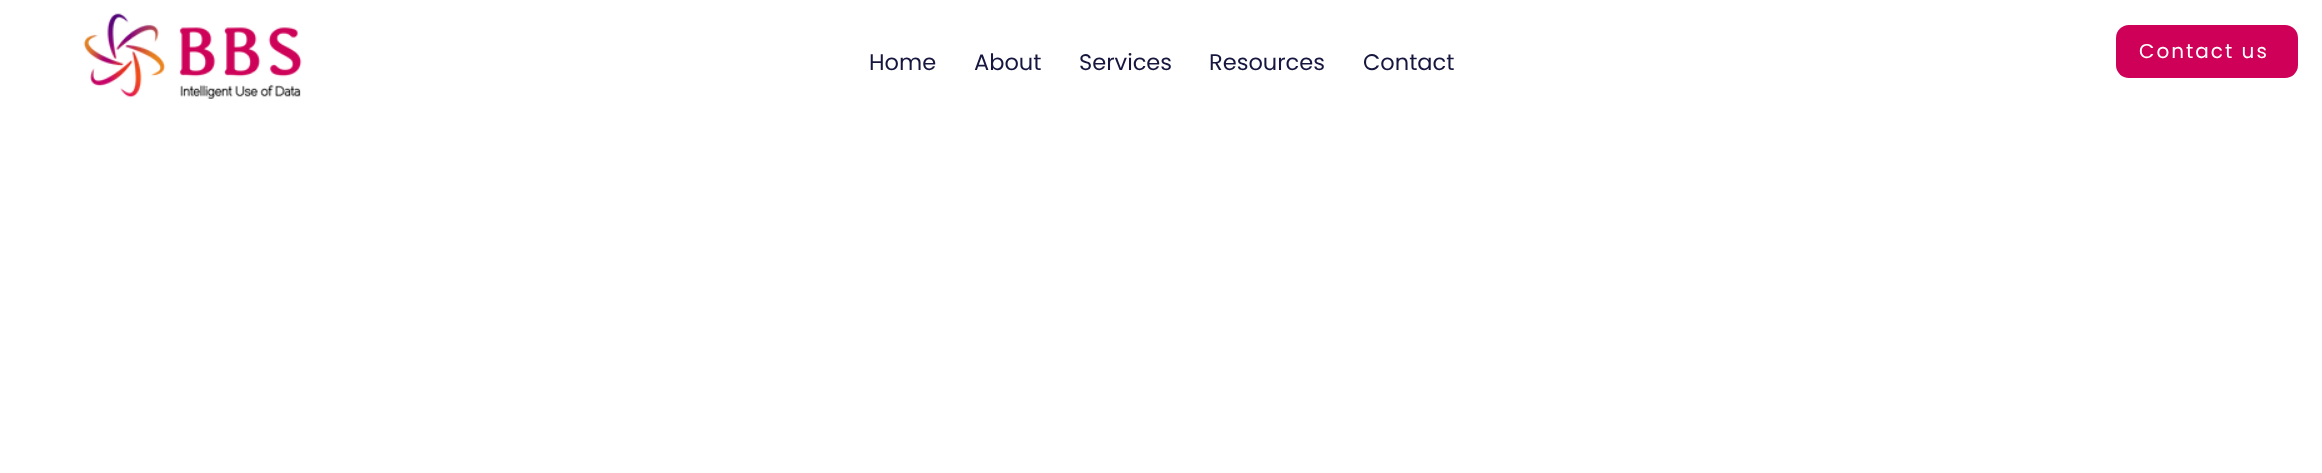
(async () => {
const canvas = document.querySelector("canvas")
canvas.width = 2322
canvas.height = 473
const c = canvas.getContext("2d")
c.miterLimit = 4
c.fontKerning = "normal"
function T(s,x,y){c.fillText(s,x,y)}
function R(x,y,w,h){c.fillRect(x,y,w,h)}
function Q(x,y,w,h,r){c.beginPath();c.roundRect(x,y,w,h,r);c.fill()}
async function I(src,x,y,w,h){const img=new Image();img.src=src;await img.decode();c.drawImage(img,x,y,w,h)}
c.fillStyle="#fff"
R(0,0,2322,473)
await I("1.png",83,13,219,86)
c.font="22.5px Poppins"
c.fillStyle="#16163f"
T("Home",869,70)
T("About",974,70)
T("Services",1079,70)
T("Resources",1209,70)
T("Contact",1363,70)
c.fillStyle="#ce0058"
Q(2116,25,182,53,13)
c.letterSpacing="2px"
c.font="20px Poppins"
c.fillStyle="#fff"
T("Contact us",2139,58)
})()
